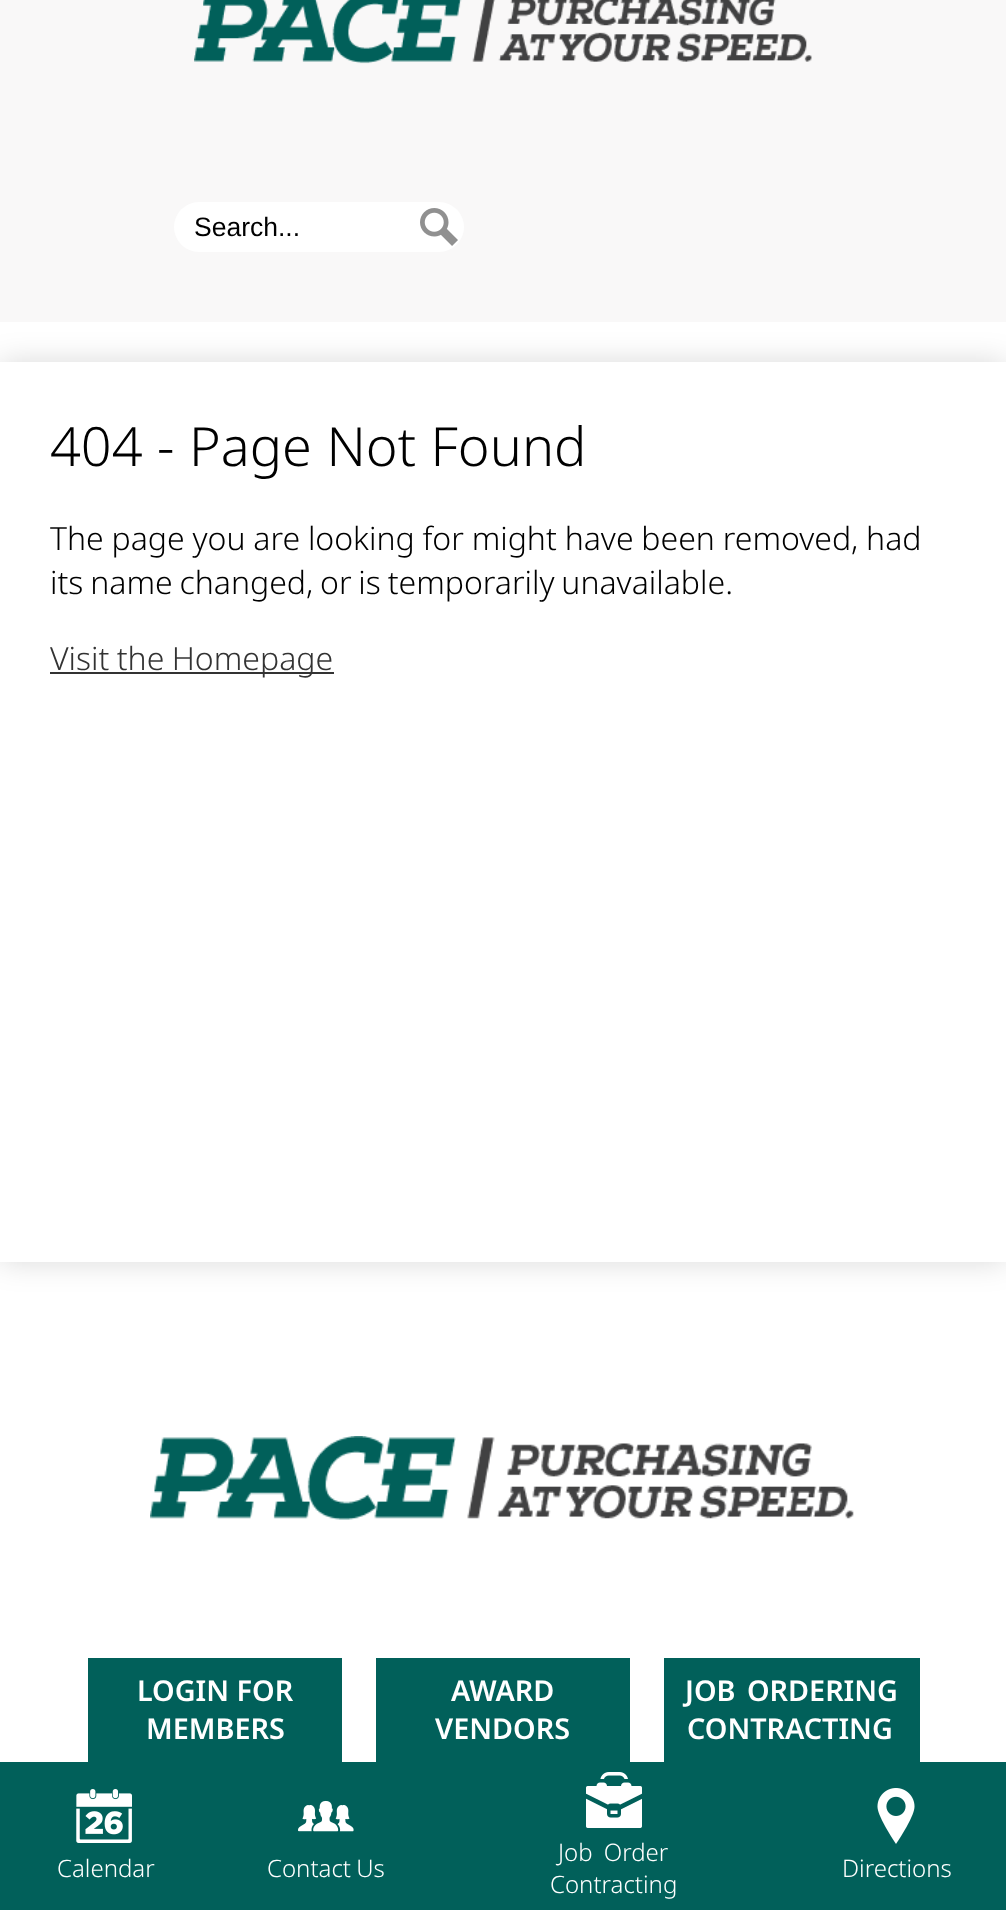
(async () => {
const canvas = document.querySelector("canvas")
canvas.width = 1006
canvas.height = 1910
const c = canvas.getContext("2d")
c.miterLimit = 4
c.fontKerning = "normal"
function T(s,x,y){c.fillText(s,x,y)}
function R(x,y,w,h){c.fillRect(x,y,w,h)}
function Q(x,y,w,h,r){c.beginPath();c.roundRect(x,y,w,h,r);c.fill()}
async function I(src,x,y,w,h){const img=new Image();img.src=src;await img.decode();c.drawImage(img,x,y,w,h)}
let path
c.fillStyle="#fff"
R(0,0,1006,1910)
c.save()
path = new Path2D("M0 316h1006v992h-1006zm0 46h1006v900h-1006z")
c.clip(path,"evenodd")
c.fillStyle="#00000026"
c.filter="blur(15px)"
c.beginPath()
c.rect(0,362,1006,900)
c.fill()
c.filter="none"
c.restore()
c.fillStyle="#f9f8f8"
R(0,0,1006,322)
await I("1.png",194,0,618,64)
c.fillStyle="#fff"
Q(174,202,290,50,25)
c.font="26.5px Liberation Sans"
c.fillStyle="#000"
T("Search...",194,236)
await I("2.png",420,208,38,38)
c.wordSpacing="0.5px"
c.font="300 54px Noto Sans"
T("404 - Page Not Found",50,466)
c.wordSpacing="-0.5px"
c.font="300 32px Noto Sans"
T("The page you are looking for might have been removed, had",50,550)
c.wordSpacing="-1.5px"
T("its name changed, or is temporarily unavailable.",50,594)
c.fillStyle="#333"
R(50,672,284,2)
c.wordSpacing="-1px"
T("Visit the Homepage",50,670)
await I("3.png",150,1436,704,84)
c.fillStyle="#01605a"
R(88,1658,254,104)
c.wordSpacing="0px"
c.font="600 28.75px Noto Sans"
c.fillStyle="#fff"
T("LOGIN FOR",137,1701)
T("MEMBERS",146,1739)
c.fillStyle="#01605a"
R(376,1658,254,104)
c.fillStyle="#fff"
T("AWARD",451,1701)
T("VENDORS",435,1739)
c.fillStyle="#01605a"
R(664,1658,256,104)
c.wordSpacing="4px"
c.fillStyle="#fff"
T("JOB ORDERING",685,1701)
c.wordSpacing="0px"
T("CONTRACTING",687,1739)
c.fillStyle="#01605a"
R(0,1762,1006,148)
await I("4.png",76,1789,56,54)
c.font="300 24px Noto Sans"
c.fillStyle="#fff"
T("Calendar",57,1877)
await I("5.png",298,1800,56,32)
c.wordSpacing="-1px"
T("Contact Us",267,1877)
await I("6.png",586,1772,56,56)
c.wordSpacing="5px"
T("Job Order",558,1861)
c.wordSpacing="0px"
T("Contracting",550,1893)
await I("7.png",877,1788,38,56)
T("Directions",842,1877)
})()
